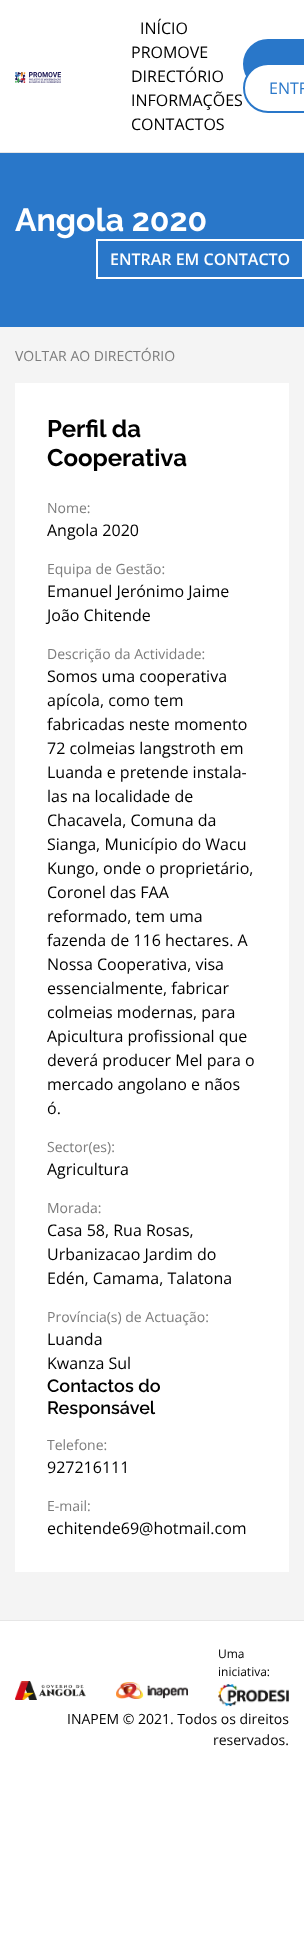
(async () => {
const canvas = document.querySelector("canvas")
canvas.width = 304
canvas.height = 1954
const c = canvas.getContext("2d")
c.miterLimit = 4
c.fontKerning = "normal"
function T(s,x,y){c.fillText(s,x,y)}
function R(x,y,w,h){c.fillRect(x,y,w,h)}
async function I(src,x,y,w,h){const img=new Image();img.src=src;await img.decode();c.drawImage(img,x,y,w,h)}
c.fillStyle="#fff"
R(0,0,304,1954)
c.fillStyle="#e6e6e6"
R(0,152,304,1)
await I("1.png",15,72,46,11)
c.font="16px Open Sans"
c.fillStyle="#000"
T("INÍCIO",140,34)
T("PROMOVE",131,58)
T("DIRECTÓRIO",131,82)
T("INFORMAÇÕES",131,106)
T("CONTACTOS",131,130)
c.fillStyle="#2977c9"
c.beginPath()
c.roundRect(244,40,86,48,24)
c.fill()
c.strokeStyle="#2977c9"
c.lineWidth=2
c.stroke()
c.fillStyle="#fff"
c.beginPath()
c.roundRect(244,64,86,48,24)
c.fill()
c.stroke()
c.fillStyle="#2977c9"
T("ENTR",269,94)
R(0,153,304,174)
c.font="bold 32px Raleway"
c.fillStyle="#fff"
T("Angola 2020",15,231)
c.strokeStyle="#fff"
c.strokeRect(97,240,206,38)
c.font="600 16px Open Sans"
T("ENTRAR EM CONTACTO",110,265)
c.fillStyle="#f4f4f4"
R(0,327,304,1293)
c.font="14px Open Sans"
c.fillStyle="#7c7c7c"
T("VOLTAR AO DIRECTÓRIO",15,361)
c.fillStyle="#fff"
R(15,383,274,1189)
c.font="bold 24px Raleway"
c.fillStyle="#000"
T("Perfil da",47,437)
T("Cooperativa",47,466)
c.font="14px Open Sans"
c.fillStyle="#7c7c7c"
T("Nome:",47,513)
c.font="16px Open Sans"
c.fillStyle="#000"
T("Angola 2020",47,536)
c.font="14px Open Sans"
c.fillStyle="#7c7c7c"
T("Equipa de Gestão:",47,574)
c.font="16px Open Sans"
c.fillStyle="#000"
T("Emanuel Jerónimo Jaime",47,597)
T("João Chitende",47,621)
c.font="14px Open Sans"
c.fillStyle="#7c7c7c"
T("Descrição da Actividade:",47,659)
c.font="16px Open Sans"
c.fillStyle="#000"
T("Somos uma cooperativa",47,682)
T("apícola, como tem",47,706)
T("fabricadas neste momento",47,730)
T("72 colmeias langstroth em",47,754)
T("Luanda e pretende instala-",47,778)
T("las na localidade de",47,802)
T("Chacavela, Comuna da",47,826)
T("Sianga, Município do Wacu",47,850)
T("Kungo, onde o proprietário,",47,874)
T("Coronel das FAA",47,898)
T("reformado, tem uma",47,922)
T("fazenda de 116 hectares. A",47,946)
T("Nossa Cooperativa, visa",47,970)
T("essencialmente, fabricar",47,994)
T("colmeias modernas, para",47,1018)
T("Apicultura profissional que",47,1042)
T("deverá producer Mel para o",47,1066)
T("mercado angolano e nãos",47,1090)
T("ó.",47,1114)
c.font="14px Open Sans"
c.fillStyle="#7c7c7c"
T("Sector(es):",47,1152)
c.font="16px Open Sans"
c.fillStyle="#000"
T("Agricultura",47,1175)
c.font="14px Open Sans"
c.fillStyle="#7c7c7c"
T("Morada:",47,1213)
c.font="16px Open Sans"
c.fillStyle="#000"
T("Casa 58, Rua Rosas,",47,1236)
T("Urbanizacao Jardim do",47,1260)
T("Edén, Camama, Talatona",47,1284)
c.font="14px Open Sans"
c.fillStyle="#7c7c7c"
T("Província(s) de Actuação:",47,1322)
c.font="16px Open Sans"
c.fillStyle="#000"
T("Luanda",47,1345)
T("Kwanza Sul",47,1369)
c.font="600 18px Raleway"
T("Contactos do",47,1392)
T("Responsável",47,1414)
c.font="14px Open Sans"
c.fillStyle="#7c7c7c"
T("Telefone:",47,1450)
c.font="16px Open Sans"
c.fillStyle="#000"
T("927216111",47,1473)
c.font="14px Open Sans"
c.fillStyle="#7c7c7c"
T("E-mail:",47,1511)
c.font="16px Open Sans"
c.fillStyle="#000"
T("echitende69@hotmail.com",47,1534)
c.fillStyle="#e6e6e6"
R(0,1620,304,1)
c.font="12px Open Sans"
c.fillStyle="#000"
T("Uma",218,1658)
T("iniciativa:",218,1676)
await I("2.png",218,1684,71,23)
await I("3.png",15,1681,71,19)
await I("4.png",116,1682,72,17)
c.font="14px Open Sans"
T("INAPEM © 2021. Todos os direitos",67,1724)
T("reservados.",213,1745)
})()
